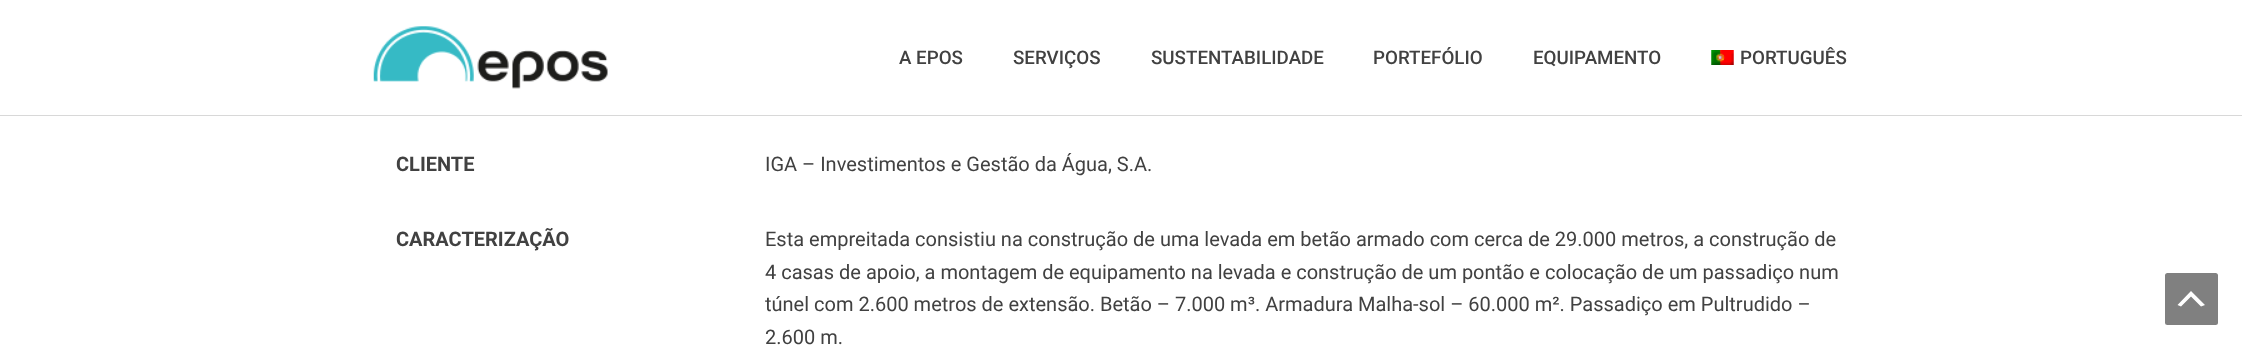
(async () => {
const canvas = document.querySelector("canvas")
canvas.width = 2242
canvas.height = 349
const c = canvas.getContext("2d")
c.miterLimit = 4
c.fontKerning = "normal"
function T(s,x,y){c.fillText(s,x,y)}
function R(x,y,w,h){c.fillRect(x,y,w,h)}
function Q(x,y,w,h,r){c.beginPath();c.roundRect(x,y,w,h,r);c.fill()}
async function I(src,x,y,w,h){const img=new Image();img.src=src;await img.decode();c.drawImage(img,x,y,w,h)}
let path
c.fillStyle="#fff"
R(0,0,2242,349)
c.fillStyle="#d8d8d8"
R(0,115,2242,1)
await I("1.png",373,26,235,63)
c.font="500 18.75px Roboto"
c.fillStyle="#414141"
T("A EPOS",899,64)
T("SERVIÇOS",1013,64)
T("SUSTENTABILIDADE",1151,64)
T("PORTEFÓLIO",1373,64)
T("EQUIPAMENTO",1533,64)
await I("2.png",1711,50,23,15)
T("PORTUGUÊS",1740,64)
c.font="bold 20px Roboto"
T("CLIENTE",396,171)
c.font="20px Roboto"
T("IGA – Investimentos e Gestão da Água, S.A.",765,171)
c.font="bold 20px Roboto"
T("CARACTERIZAÇÃO",396,246)
c.font="20px Roboto"
T("Esta empreitada consistiu na construção de uma levada em betão armado com cerca de 29.000 metros, a construção de",765,246)
T("4 casas de apoio, a montagem de equipamento na levada e construção de um pontão e colocação de um passadiço num",765,279)
T("túnel com 2.600 metros de extensão. Betão – 7.000 m³. Armadura Malha-sol – 60.000 m². Passadiço em Pultrudido –",765,311)
T("2.600 m.",765,344)
c.fillStyle="#808080"
Q(2165,273,53,52,2.5)
c.fillStyle="#fff"
path = new Path2D("M2201 306.5l-10-10l-10 10l-3.5-1.5l13.5-14l14 14z")
c.fill(path)
})()
